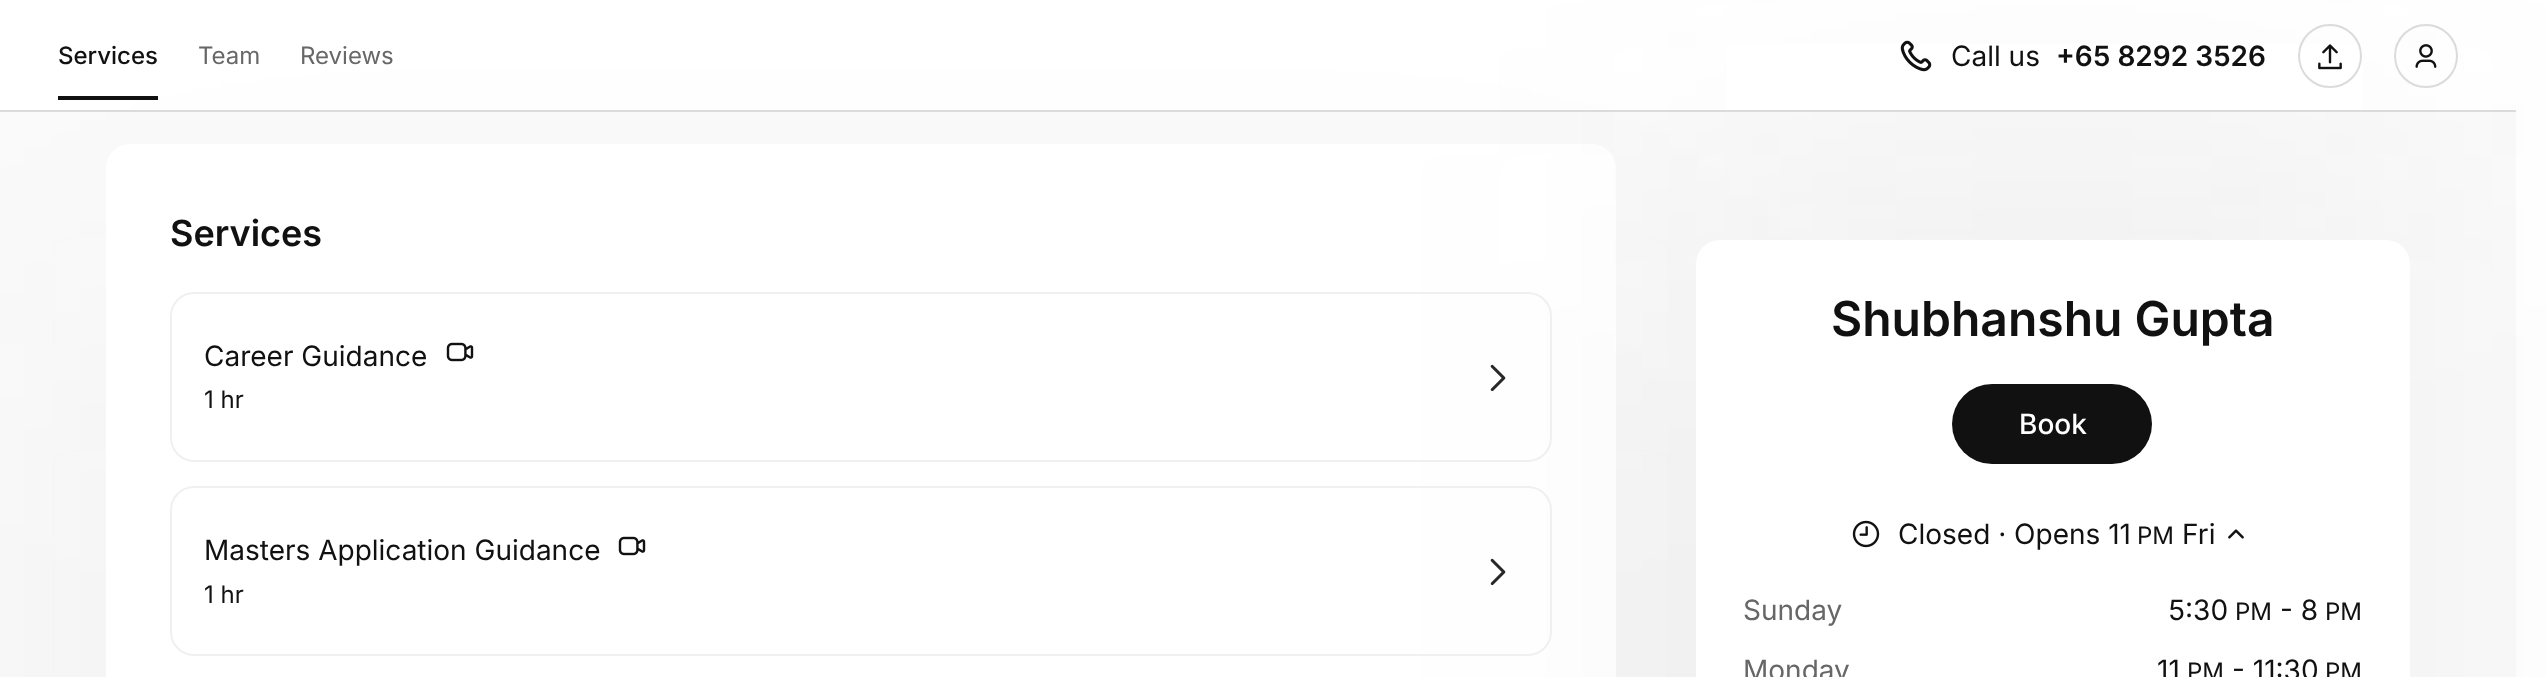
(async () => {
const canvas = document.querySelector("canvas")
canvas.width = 2546
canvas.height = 677
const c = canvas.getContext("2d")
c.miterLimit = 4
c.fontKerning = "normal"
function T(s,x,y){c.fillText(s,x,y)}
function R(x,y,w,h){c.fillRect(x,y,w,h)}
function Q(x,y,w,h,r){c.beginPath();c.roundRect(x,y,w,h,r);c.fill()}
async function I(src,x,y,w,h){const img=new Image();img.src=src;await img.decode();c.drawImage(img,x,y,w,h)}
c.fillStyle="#fff"
R(0,0,2546,677)
c.fillStyle="#fafafa"
R(0,112,2516,565)
c.fillStyle="#3f44470f"
c.filter="blur(160px)"
c.beginPath()
c.roundRect(106,344,1510,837,24)
c.fill()
c.filter="none"
c.fillStyle="#fff"
Q(106,144,1510,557,24)
c.fillStyle="#4d52560f"
c.filter="blur(160px)"
c.beginPath()
c.roundRect(1696,154,714,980,24)
c.fill()
c.filter="none"
c.fillStyle="#fff"
R(1726,44,637,66)
c.fillStyle="#dbdbdb"
R(0,110,2516,2)
c.font="500 24px Inter"
c.fillStyle="#111"
T("Services",58,64)
R(58,96,100,4)
c.font="24px Inter"
c.fillStyle="#676767"
T("Team",198,64)
T("Reviews",300,64)
await I("1.png",1900,40,32,32)
c.font="28px Inter"
c.fillStyle="#111"
T("Call us",1951,66)
c.font="600 28px Inter"
T("+65 8292 3526",2056,66)
c.beginPath()
c.arc(2330,56,31,0,7)
c.strokeStyle="#dbdbdb"
c.lineWidth=2
c.stroke()
await I("2.png",2318,44,24,26)
c.beginPath()
c.arc(2426,56,31,0,7)
c.stroke()
await I("3.png",2415,44,22,24)
c.font="600 36px Inter"
T("Services",170,246)
c.beginPath()
c.roundRect(171,293,1380,168,23)
c.strokeStyle="#f0f0f0"
c.stroke()
c.font="28px Inter"
T("Career Guidance",204,366)
await I("4.png",446,342,28,20)
c.font="24px Inter"
T("1 hr",204,408)
await I("5.png",1490,364,16,28)
c.beginPath()
c.roundRect(171,487,1380,168,23)
c.stroke()
c.font="28px Inter"
T("Masters Application Guidance",204,560)
await I("4.png",618,536,28,20)
c.font="24px Inter"
T("1 hr",204,603)
await I("6.png",1490,558,16,28)
c.fillStyle="#fff"
Q(1696,240,714,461,24)
c.font="600 48px Inter"
c.fillStyle="#111"
T("Shubhanshu Gupta",1831,336)
Q(1952,384,200,80,40)
c.font="500 28px Inter"
c.fillStyle="#fff"
T("Book",2019,434)
await I("7.png",1852,520,28,28)
c.font="28px Inter"
c.fillStyle="#111"
T("Closed · Opens 11",1898,544)
c.font="24px Inter"
T("PM",2137,544)
c.font="28px Inter"
T("Fri",2182,544)
await I("8.png",2228,529,16,10)
c.fillStyle="#676767"
T("Sunday",1743,620)
c.fillStyle="#111"
T("5:30",2168,620)
c.font="24px Inter"
T("PM",2235,620)
c.font="28px Inter"
T("- 8",2280,620)
c.font="24px Inter"
T("PM",2325,620)
c.font="28px Inter"
c.fillStyle="#676767"
T("Monday",1743,680)
c.fillStyle="#111"
T("11",2157,680)
c.font="24px Inter"
T("PM",2187,680)
c.font="28px Inter"
T("- 11:30",2232,680)
c.font="24px Inter"
T("PM",2325,680)
})()
